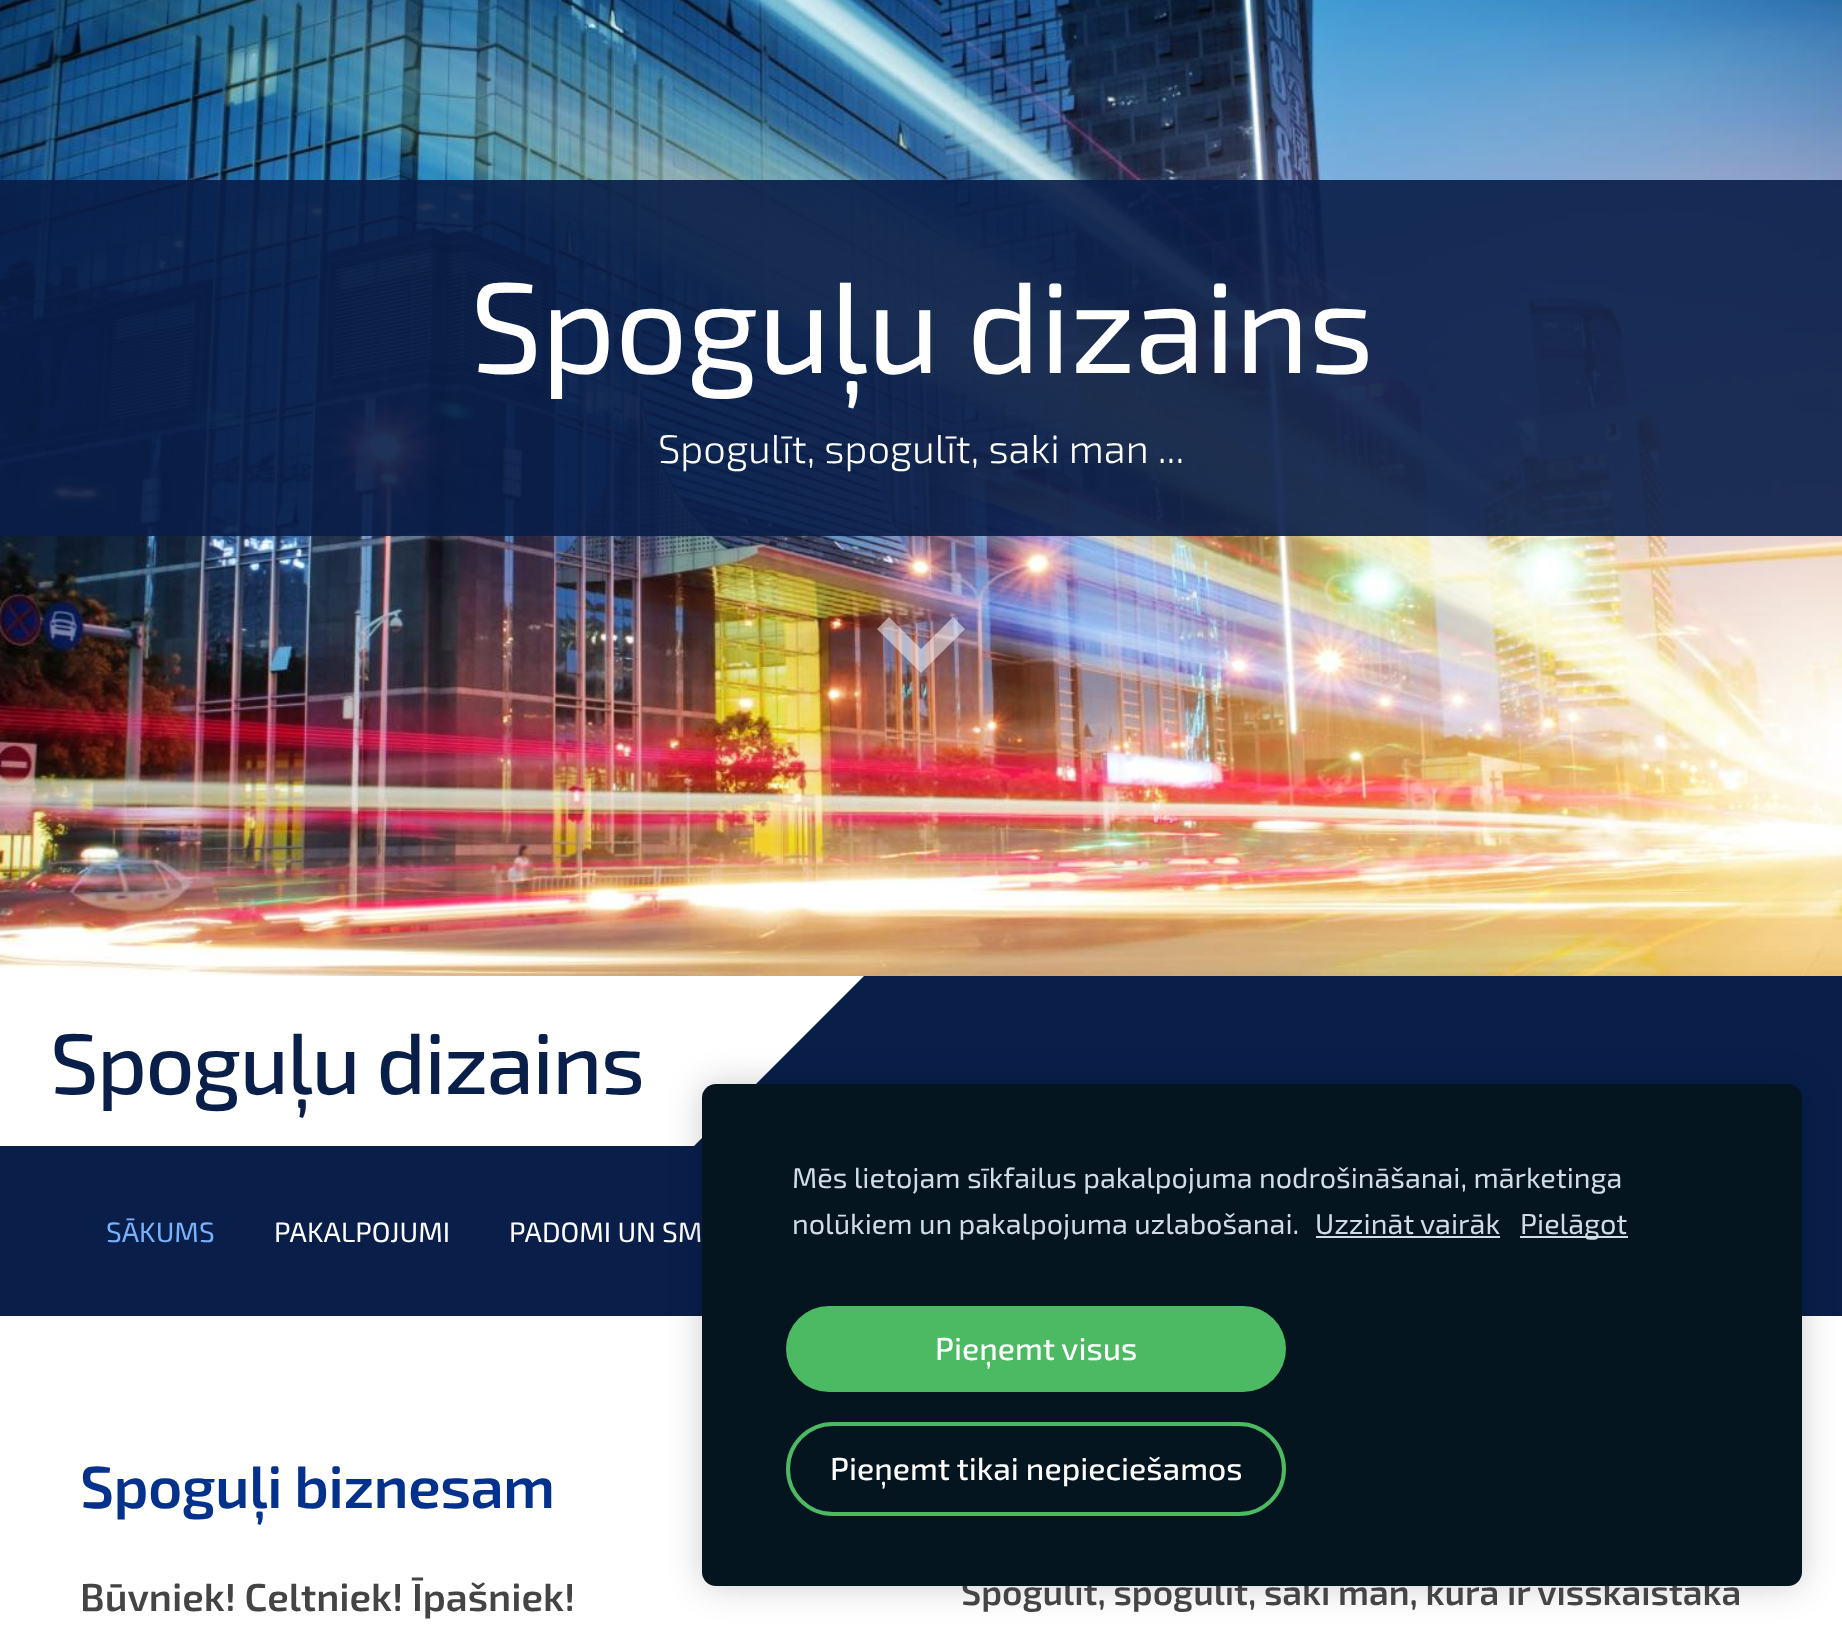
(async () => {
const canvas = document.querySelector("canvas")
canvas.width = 1842
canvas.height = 1626
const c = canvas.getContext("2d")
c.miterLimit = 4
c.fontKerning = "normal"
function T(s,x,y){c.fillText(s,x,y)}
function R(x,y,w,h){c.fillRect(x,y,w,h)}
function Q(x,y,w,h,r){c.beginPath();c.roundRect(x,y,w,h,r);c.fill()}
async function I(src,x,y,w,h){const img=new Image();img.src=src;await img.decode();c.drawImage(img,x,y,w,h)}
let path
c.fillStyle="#fff"
R(0,0,1842,1626)
await I("1.png",0,0,1842,976)
c.fillStyle="#091e49e8"
R(0,180,1842,356)
c.letterSpacing="-1.25px"
c.font="129px 'Exo 2'"
c.fillStyle="#fff"
T("Spoguļu dizains",470,373)
c.letterSpacing="0px"
c.font="300 40px 'Exo 2'"
T("Spogulīt, spogulīt, saki man ...",658,463)
c.fillStyle="#ffffff80"
path = new Path2D("M921 649l32-32l12 12l-44 44l-44-44l12-12z")
c.fill(path)
c.fillStyle="#091f4a"
R(0,976,1842,340)
c.fillStyle="#fff"
R(0,976,694,170)
c.letterSpacing="-1.75px"
c.font="500 86px 'Exo 2'"
c.fillStyle="#091f4a"
T("Spoguļu dizains",50,1094)
c.fillStyle="#fff"
path = new Path2D("M694 976h170l-170 170z")
c.fill(path)
c.letterSpacing="0px"
c.font="28px 'Exo 2'"
c.fillStyle="#78b2ff"
T("SĀKUMS",106,1242)
c.fillStyle="#fff"
T("PAKALPOJUMI",274,1242)
T("PADOMI UN SM",509,1242)
c.fillStyle="#00000033"
c.filter="blur(17px)"
c.beginPath()
c.roundRect(702,1084,1100,502,14)
c.fill()
c.filter="none"
c.font="600 35.2px 'Exo 2'"
c.fillStyle="#444"
T("Spogulīt, spogulīt, saki man, kura ir visskaistākā",961,1605)
c.fillStyle="#04151f"
Q(702,1084,1100,502,14)
c.font="28.8px 'Exo 2'"
c.fillStyle="#d2dce6"
T("Mēs lietojam sīkfailus pakalpojuma nodrošināšanai, mārketinga",792,1188)
T("nolūkiem un pakalpojuma uzlabošanai.",792,1234)
T("Uzzināt vairāk",1315,1234)
R(1316,1236,184,2)
R(1520,1236,108,2)
T("Pielāgot",1520,1234)
c.fillStyle="#4cb963"
Q(786,1306,500,86,43)
c.font="500 31.75px 'Exo 2'"
c.fillStyle="#fff"
T("Pieņemt visus",935,1360)
c.beginPath()
c.roundRect(788,1424,496,90,45)
c.strokeStyle="#4cb963"
c.lineWidth=4
c.stroke()
T("Pieņemt tikai nepieciešamos",830,1480)
c.letterSpacing="-0.6px"
c.font="600 59.25px 'Exo 2'"
c.fillStyle="#03318c"
T("Spoguļi biznesam",80,1508)
c.letterSpacing="0px"
c.font="600 39px 'Exo 2'"
c.fillStyle="#444"
T("Būvniek! Celtniek! Īpašniek!",80,1611)
})()
